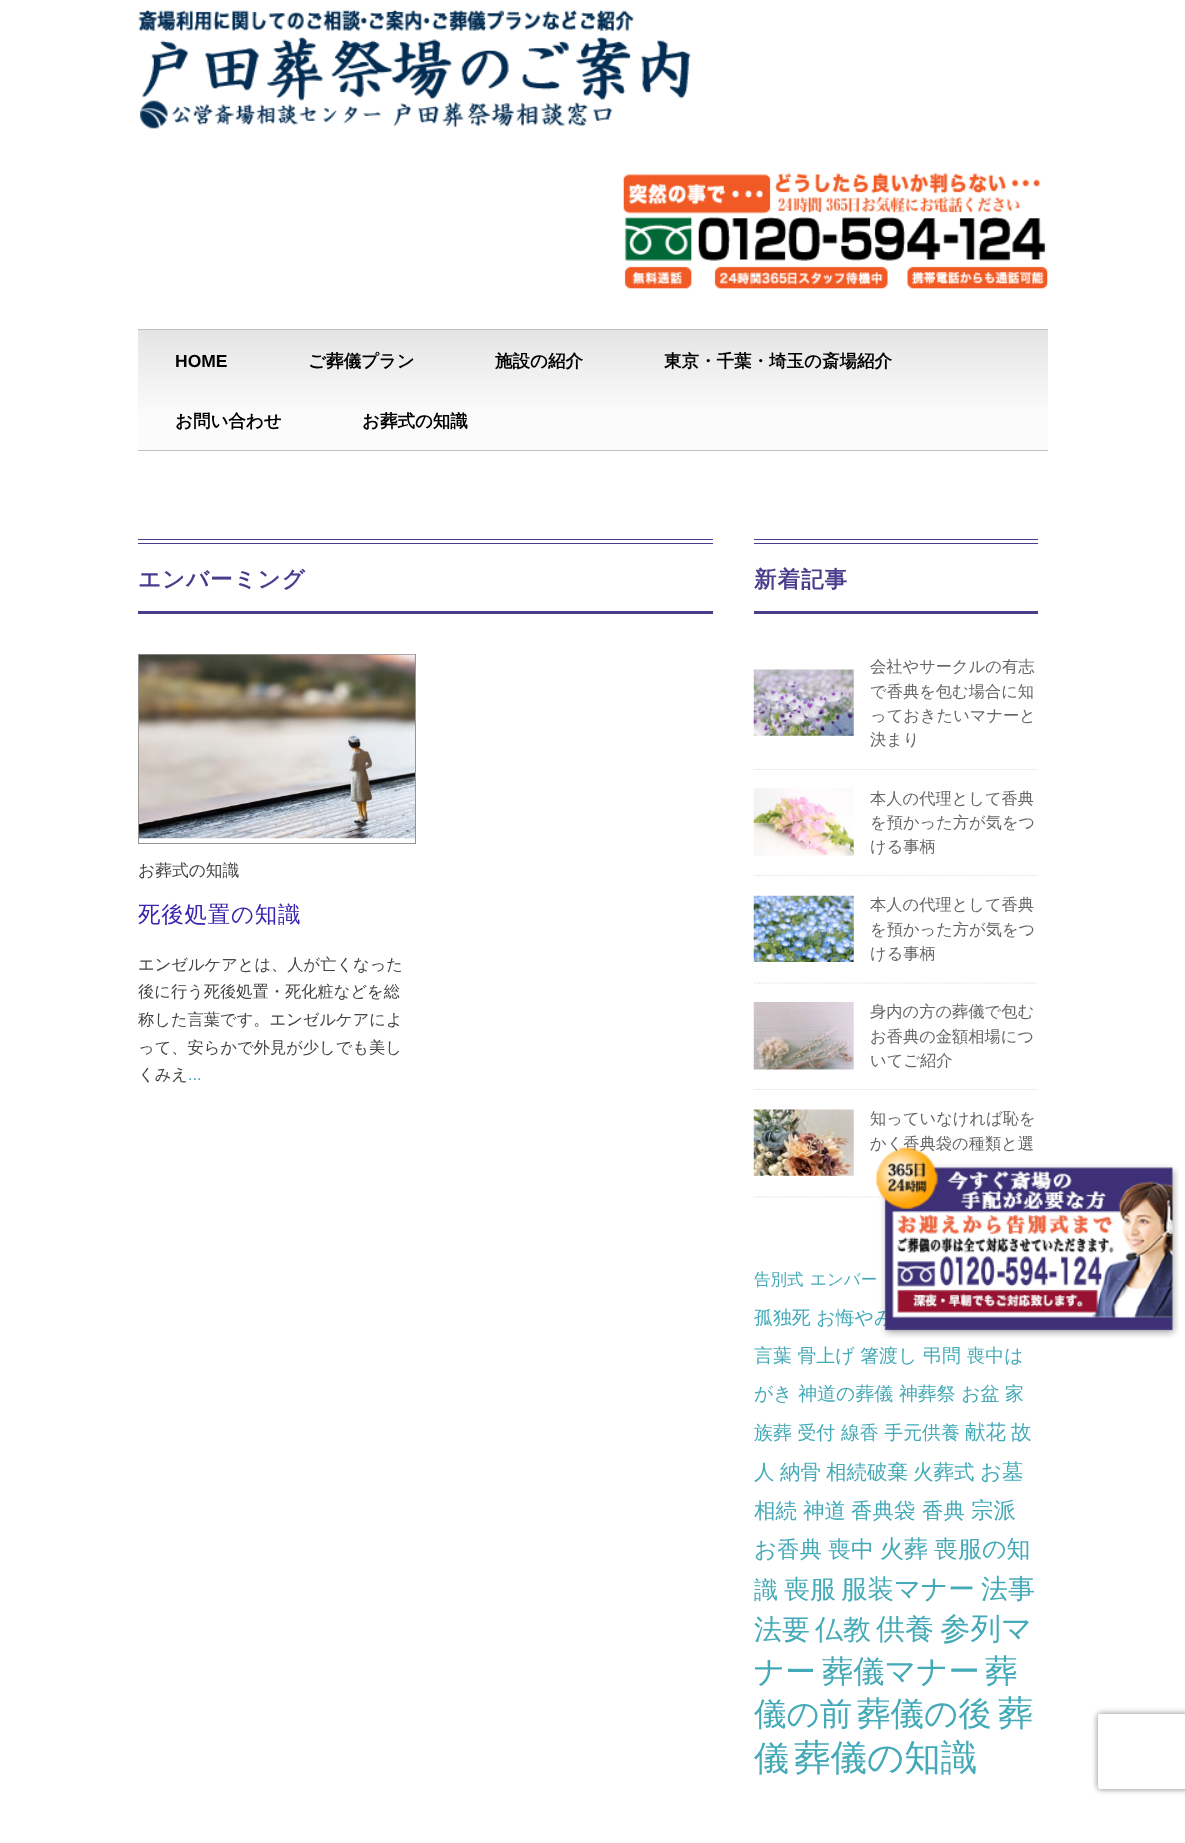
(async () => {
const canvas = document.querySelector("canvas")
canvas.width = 1185
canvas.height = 1843
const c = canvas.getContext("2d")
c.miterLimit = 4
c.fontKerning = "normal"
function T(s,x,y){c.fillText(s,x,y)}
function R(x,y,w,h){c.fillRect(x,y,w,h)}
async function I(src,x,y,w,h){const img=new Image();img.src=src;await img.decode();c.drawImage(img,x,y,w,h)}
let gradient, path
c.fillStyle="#fff"
R(0,0,1185,1843)
await I("1.png",138,10,553,119)
await I("2.png",623,173,425,116)
gradient = c.createLinearGradient(593,330,593,450)
gradient.addColorStop(0,"#e4e4e4")
gradient.addColorStop(.69,"#fbfbfb")
c.fillStyle = gradient
R(138,330,910,120)
c.fillStyle="#c1c1c1"
R(138,329,910,1)
R(138,450,910,1)
c.font="bold 17.5px Liberation Sans"
c.fillStyle="#000"
T("HOME",175,367)
c.font="bold 17.5px WenQuanYi Zen Hei"
T("ご葬儀プラン",308,367)
T("施設の紹介",495,367)
T("東京・千葉・埼玉の斎場紹介",664,367)
T("お問い合わせ",175,427)
T("お葬式の知識",362,427)
c.fillStyle="#4b3d8c"
R(138,539,575,1)
R(138,543,575,1)
R(138,611,575,3)
c.letterSpacing="1px"
c.font="bold 22.5px WenQuanYi Zen Hei"
T("エンバーミング",138,587)
c.strokeStyle="#959595"
c.strokeRect(138.5,654.5,277,189)
await I("3.png",138,654,277,185)
c.letterSpacing="0px"
c.font="500 16.75px WenQuanYi Zen Hei"
c.fillStyle="#444"
T("お葬式の知識",138,876)
c.letterSpacing="0.75px"
c.font="500 22.5px WenQuanYi Zen Hei"
c.fillStyle="#3c23af"
T("死後処置の知識",138,922)
c.letterSpacing="0px"
c.font="500 16.25px WenQuanYi Zen Hei"
c.fillStyle="#444"
T("エンゼルケアとは、人が亡くなった",138,970)
T("後に行う死後処置・死化粧などを総",138,997)
T("称した言葉です。エンゼルケアによ",138,1025)
T("って、安らかで外見が少しでも美し",138,1053)
T("くみえ",138,1080)
c.font="16.25px Liberation Sans"
c.fillStyle="#45aab8"
T("...",188,1080)
c.fillStyle="#4b3d8c"
R(754,539,284,1)
R(754,543,284,1)
R(754,611,284,3)
c.letterSpacing="1px"
c.font="bold 22.5px WenQuanYi Zen Hei"
T("新着記事",754,587)
path = new Path2D("M754 769.5h283.5")
c.strokeStyle="#ddd"
c.lineWidth=1.2
c.setLineDash([1.25,1.25])
c.stroke(path)
await I("4.png",753,669,101,67)
c.letterSpacing="0px"
c.font="500 16.25px WenQuanYi Zen Hei"
c.fillStyle="#666"
T("会社やサークルの有志",870,672)
T("で香典を包む場合に知",870,697)
T("っておきたいマナーと",870,721)
T("決まり",870,745)
path = new Path2D("M754 875.5h283.5")
c.stroke(path)
await I("5.png",753,788,101,68)
T("本人の代理として香典",870,804)
T("を預かった方が気をつ",870,828)
T("ける事柄",870,852)
path = new Path2D("M754 983h283.5")
c.stroke(path)
await I("6.png",753,895,101,67)
T("本人の代理として香典",870,910)
T("を預かった方が気をつ",870,935)
T("ける事柄",870,959)
path = new Path2D("M754 1089.5h283.5")
c.stroke(path)
await I("7.png",753,1002,101,68)
T("身内の方の葬儀で包む",870,1017)
T("お香典の金額相場につ",870,1042)
T("いてご紹介",870,1066)
path = new Path2D("M754 1197h283.5")
c.stroke(path)
await I("8.png",753,1109,101,67)
T("知っていなければ恥を",870,1124)
T("かく香典袋の種類と選",870,1149)
c.font="500 16.5px WenQuanYi Zen Hei"
c.fillStyle="#45aab8"
T("告別式",754,1285)
T("エンバー",810,1285)
c.font="500 18.9px WenQuanYi Zen Hei"
T("孤独死 お悔やみ",754,1324)
T("言葉 骨上げ 箸渡し 弔問 喪中は",754,1362)
T("がき 神道の葬儀 神葬祭 お盆 家",754,1400)
T("族葬 受付 線香 手元供養",754,1439)
c.font="500 20.5px WenQuanYi Zen Hei"
T("献花",965,1439)
T("故",1011,1439)
T("人",754,1479)
T("納骨",780,1479)
T("相続破棄",826,1479)
T("火葬式",913,1479)
c.font="500 21.5px WenQuanYi Zen Hei"
T("お墓",980,1479)
T("相続",754,1518)
T("神道",803,1518)
T("香典袋",851,1518)
T("香典",922,1518)
c.font="500 22.5px WenQuanYi Zen Hei"
T("宗派",971,1518)
T("お香典",754,1557)
c.font="500 23px WenQuanYi Zen Hei"
T("喪中",828,1557)
c.font="500 24px WenQuanYi Zen Hei"
T("火葬",880,1557)
T("喪服の知",934,1557)
T("識",754,1598)
c.font="500 26px WenQuanYi Zen Hei"
T("喪服",784,1598)
c.font="500 26.5px WenQuanYi Zen Hei"
T("服装マナー",841,1598)
c.font="500 27px WenQuanYi Zen Hei"
T("法事",981,1598)
c.font="500 28px WenQuanYi Zen Hei"
T("法要",754,1639)
T("仏教",815,1639)
c.font="500 29px WenQuanYi Zen Hei"
T("供養",876,1639)
c.font="500 30.5px WenQuanYi Zen Hei"
T("参列マ",940,1639)
T("ナー",754,1682)
c.font="500 31.25px WenQuanYi Zen Hei"
T("葬儀マナー",822,1682)
c.font="500 32.5px WenQuanYi Zen Hei"
T("葬",985,1682)
T("儀の前",754,1725)
c.font="500 33.5px WenQuanYi Zen Hei"
T("葬儀の後",857,1725)
c.font="500 35px WenQuanYi Zen Hei"
T("葬",998,1725)
T("儀",754,1770)
c.font="500 36.5px WenQuanYi Zen Hei"
T("葬儀の知識",794,1770)
await I("9.png",876,1147,303,191)
c.save()
path = new Path2D("M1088 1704h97v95h-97zm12.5 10h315c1.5 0 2.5 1 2.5 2.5v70c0 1.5-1 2.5-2.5 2.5h-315c-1.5 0-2.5-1-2.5-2.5v-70c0-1.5 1-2.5 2.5-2.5z")
c.clip(path,"evenodd")
c.fillStyle="#808080"
c.filter="blur(3px)"
c.beginPath()
c.roundRect(1098,1714,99,75,2.5)
c.fill()
c.filter="none"
c.restore()
})()
